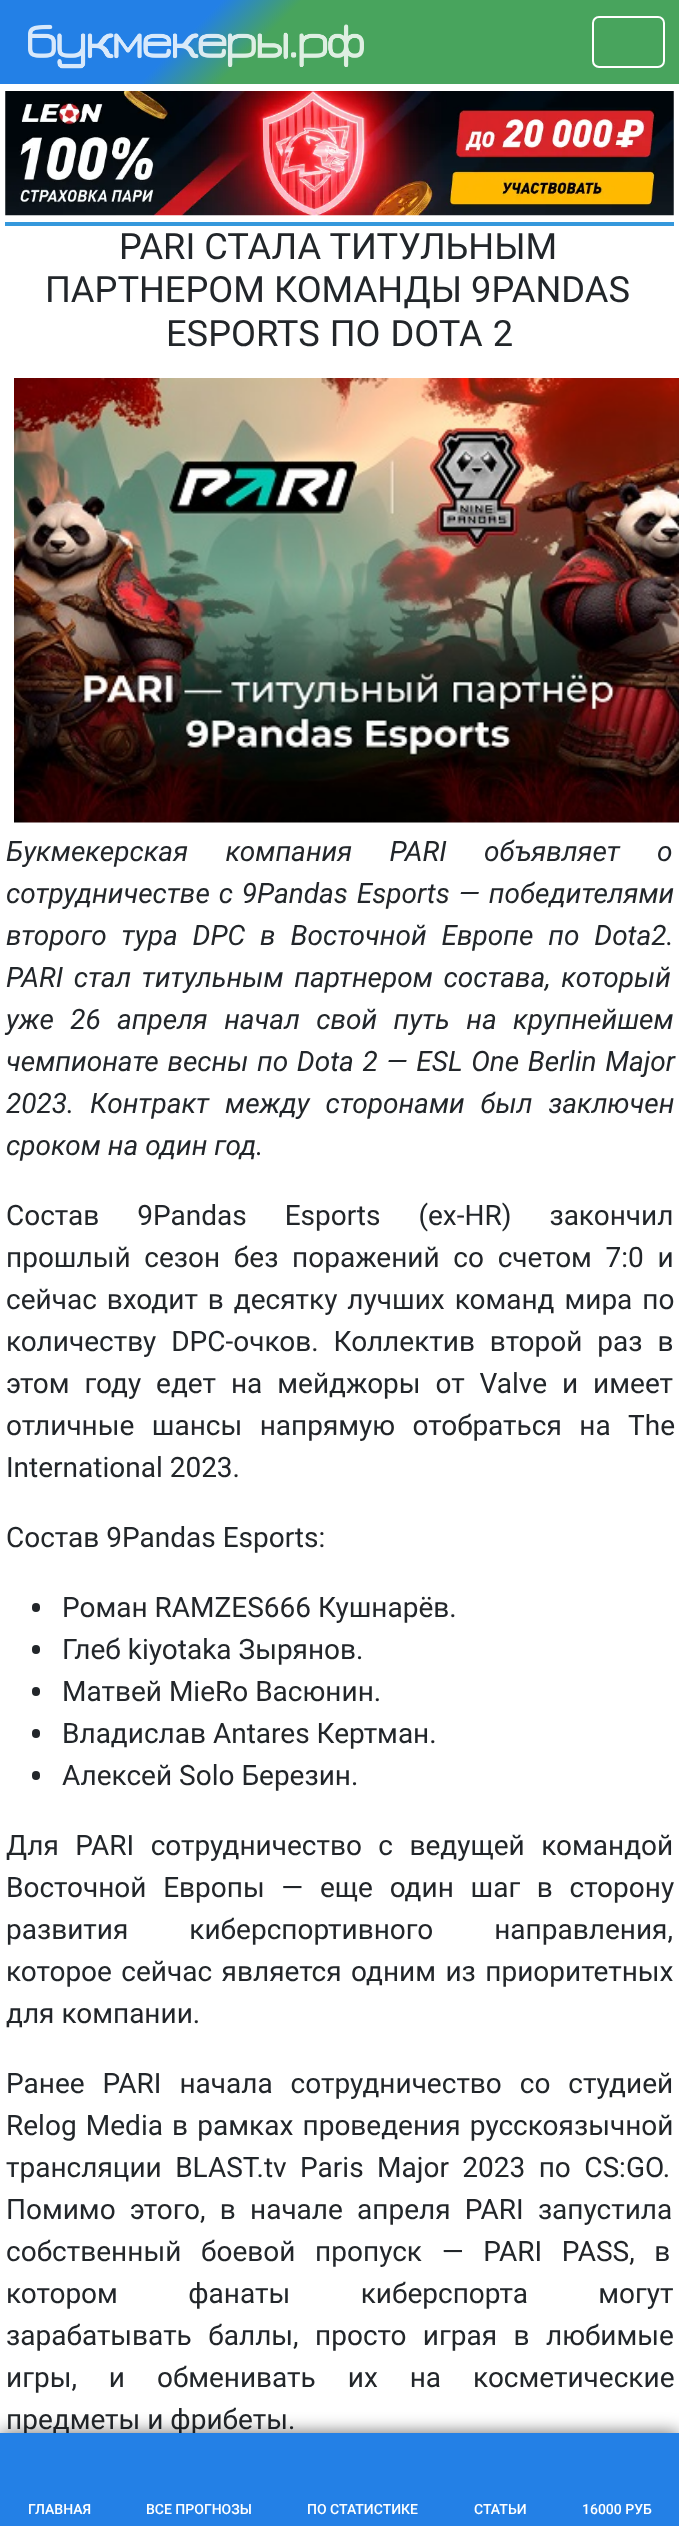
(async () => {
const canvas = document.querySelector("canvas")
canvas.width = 679
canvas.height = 2526
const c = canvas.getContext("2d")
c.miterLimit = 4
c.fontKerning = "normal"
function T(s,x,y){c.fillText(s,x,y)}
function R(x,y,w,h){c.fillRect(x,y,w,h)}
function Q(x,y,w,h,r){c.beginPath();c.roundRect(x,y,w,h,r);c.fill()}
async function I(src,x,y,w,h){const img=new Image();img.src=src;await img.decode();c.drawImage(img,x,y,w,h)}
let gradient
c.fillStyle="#fff"
R(0,0,679,2526)
gradient = c.createLinearGradient(142,-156,537,240)
gradient.addColorStop(.3,"#2380e6")
gradient.addColorStop(.4,"#48a45d")
c.fillStyle = gradient
R(0,0,679,84)
await I("1.png",28,24,336,45)
c.beginPath()
c.roundRect(593,17,71,50,6)
c.strokeStyle="#fff"
c.lineWidth=2
c.stroke()
await I("2.png",5,91,669,125)
c.fillStyle="#3598dc"
R(5,222,669,4)
c.font="36.25px Roboto"
c.fillStyle="#22262a"
T("PARI СТАЛА ТИТУЛЬНЫМ",119,259)
T("ПАРТНЕРОМ КОМАНДЫ 9PANDAS",45,302)
c.wordSpacing="1px"
T("ESPORTS ПО DOTA 2",166,346)
await I("3.png",14,378,665,445)
c.wordSpacing="30.5px"
c.font="italic 28px Roboto"
T("Букмекерская компания PARI объявляет о",6,861)
c.wordSpacing="2px"
T("сотрудничестве с 9Pandas Esports — победителями",6,903)
c.wordSpacing="8px"
T("второго тура DPC в Восточной Европе по Dota2.",6,945)
c.wordSpacing="3.75px"
T("PARI стал титульным партнером состава, который",6,987)
c.wordSpacing="9.5px"
T("уже 26 апреля начал свой путь на крупнейшем",6,1029)
c.wordSpacing="1.75px"
T("чемпионате весны по Dota 2 — ESL One Berlin Major",6,1071)
c.wordSpacing="9px"
T("2023. Контракт между сторонами был заключен",6,1113)
c.wordSpacing="0px"
T("сроком на один год.",6,1155)
c.wordSpacing="31px"
c.font="28px Roboto"
T("Состав 9Pandas Esports (ex-HR) закончил",6,1225)
c.wordSpacing="6.75px"
T("прошлый сезон без поражений со счетом 7:0 и",6,1267)
c.wordSpacing="3px"
T("сейчас входит в десятку лучших команд мира по",6,1309)
c.wordSpacing="8px"
T("количеству DPC-очков. Коллектив второй раз в",6,1351)
T("этом году едет на мейджоры от Valve и имеет",6,1393)
c.wordSpacing="10.5px"
T("отличные шансы напрямую отобраться на The",6,1435)
c.wordSpacing="0px"
T("International 2023.",6,1477)
T("Состав 9Pandas Esports:",6,1547)
Q(32,1603,8,9,4)
T("Роман RAMZES666 Кушнарёв.",62,1617)
Q(32,1645,8,9,4)
T("Глеб kiyotaka Зырянов.",62,1659)
Q(32,1687,8,9,4)
T("Матвей MieRo Васюнин.",62,1701)
Q(32,1729,8,9,4)
T("Владислав Antares Кертман.",62,1743)
Q(32,1771,8,9,4)
T("Алексей Solo Березин.",62,1785)
c.wordSpacing="9.5px"
T("Для PARI сотрудничество с ведущей командой",6,1855)
c.wordSpacing="9.75px"
T("Восточной Европы — еще один шаг в сторону",6,1897)
c.wordSpacing="54px"
T("развития киберспортивного направления,",6,1939)
c.wordSpacing="2.5px"
T("которое сейчас является одним из приоритетных",6,1981)
c.wordSpacing="0px"
T("для компании.",6,2023)
c.wordSpacing="11px"
T("Ранее PARI начала сотрудничество со студией",6,2093)
c.wordSpacing="2.25px"
T("Relog Media в рамках проведения русскоязычной",6,2135)
c.wordSpacing="6.5px"
T("трансляции BLAST.tv Paris Major 2023 по CS:GO.",6,2177)
c.wordSpacing="7.25px"
T("Помимо этого, в начале апреля PARI запустила",6,2219)
c.wordSpacing="12.75px"
T("собственный боевой пропуск — PARI PASS, в",6,2261)
c.wordSpacing="63.5px"
T("котором фанаты киберспорта могут",6,2303)
c.wordSpacing="9.5px"
T("зарабатывать баллы, просто играя в любимые",6,2345)
c.wordSpacing="25px"
T("игры, и обменивать их на косметические",6,2387)
c.wordSpacing="0px"
T("предметы и фрибеты.",6,2429)
c.fillStyle="#00000099"
c.filter="blur(9px)"
c.beginPath()
c.rect(0,2433,679,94)
c.fill()
c.filter="none"
c.fillStyle="#2380e6"
R(0,2433,679,93)
c.font="500 14px Roboto"
c.fillStyle="#fff"
T("ГЛАВНАЯ",28,2514)
T("ВСЕ ПРОГНОЗЫ",146,2514)
T("ПО СТАТИСТИКЕ",307,2514)
T("СТАТЬИ",474,2514)
T("16000 РУБ",582,2514)
})()
